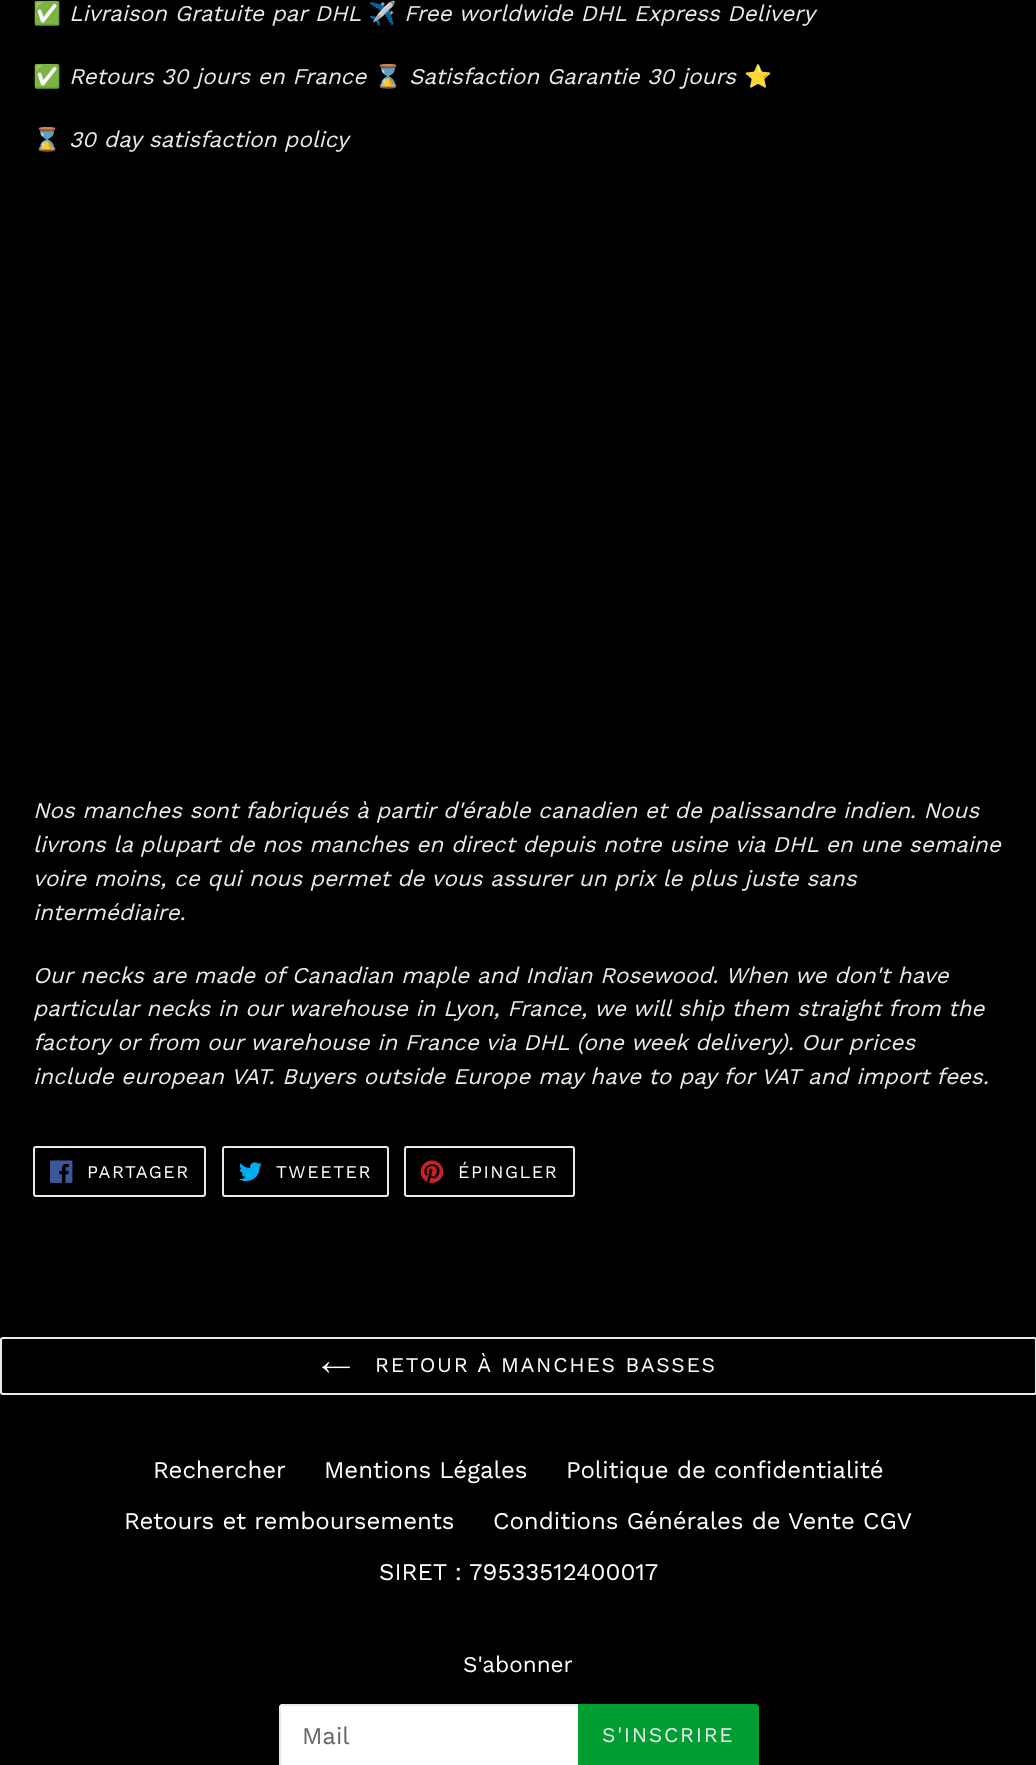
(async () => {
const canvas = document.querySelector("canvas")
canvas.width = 1036
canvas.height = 1765
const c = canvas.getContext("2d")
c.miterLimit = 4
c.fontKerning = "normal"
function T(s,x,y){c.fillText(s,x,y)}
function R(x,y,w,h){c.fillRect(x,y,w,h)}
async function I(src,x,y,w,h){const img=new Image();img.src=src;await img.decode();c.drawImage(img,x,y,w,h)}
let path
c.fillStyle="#000"
R(0,0,1036,1765)
c.font="22.5px Noto Color Emoji"
c.fillStyle="#eaeaea"
T("✅",33,21)
c.font="italic 22.5px Work Sans"
T("Livraison Gratuite par DHL",69,21)
c.font="22.5px Noto Color Emoji"
T("✈️",368,21)
c.font="italic 22.5px Work Sans"
T("Free worldwide DHL Express Delivery",404,21)
c.font="22.5px Noto Color Emoji"
T("✅",33,84)
c.font="italic 22.5px Work Sans"
T("Retours 30 jours en France",69,84)
c.font="22.5px Noto Color Emoji"
T("⌛️",374,84)
c.font="italic 22.5px Work Sans"
T("Satisfaction Garantie 30 jours",409,84)
c.font="22.5px Noto Color Emoji"
T("⭐️",744,84)
T("⌛️",33,147)
c.font="italic 22.5px Work Sans"
T("30 day satisfaction policy",69,147)
T("Nos manches sont fabriqués à partir d'érable canadien et de palissandre indien. Nous",33,818)
T("livrons la plupart de nos manches en direct depuis notre usine via DHL en une semaine",33,852)
T("voire moins, ce qui nous permet de vous assurer un prix le plus juste sans",33,886)
T("intermédiaire.",33,920)
T("Our necks are made of Canadian maple and Indian Rosewood. When we don't have",33,983)
T("particular necks in our warehouse in Lyon, France, we will ship them straight from the",33,1016)
T("factory or from our warehouse in France via DHL (one week delivery). Our prices",33,1050)
T("include european VAT. Buyers outside Europe may have to pay for VAT and import fees.",33,1084)
c.beginPath()
c.roundRect(34,1147,171,49,2)
c.strokeStyle="#e8e9eb"
c.lineWidth=2
c.stroke()
await I("1.png",50,1160,23,23)
c.letterSpacing="1.5px"
c.font="18px Work Sans"
c.fillStyle="#fff"
T("PARTAGER",87,1178)
c.beginPath()
c.roundRect(223,1147,165,49,2)
c.stroke()
await I("2.png",239,1162,23,20)
T("TWEETER",276,1178)
c.beginPath()
c.roundRect(405,1147,169,49,2)
c.stroke()
await I("3.png",420,1160,24,23)
T("ÉPINGLER",458,1178)
c.beginPath()
c.roundRect(1,1338,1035,56,2)
c.stroke()
await I("4.png",322,1362,28,11)
c.letterSpacing="1.7px"
c.font="21px Work Sans"
T("RETOUR À MANCHES BASSES",375,1372)
c.letterSpacing="0px"
c.font="24px Work Sans"
T("Rechercher",153,1478)
T("Mentions Légales",324,1478)
T("Politique de confidentialité",566,1478)
T("Retours et remboursements",124,1529)
T("Conditions Générales de Vente CGV",493,1529)
T("SIRET : 79533512400017",379,1580)
c.font="22.5px Work Sans"
T("S'abonner",463,1672)
path = new Path2D("M282 1704h296v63h-296c-1.5 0-3-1.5-3-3v-57c0-1.5 1.5-3 3-3z")
c.fill(path)
c.fillStyle="#e8e9eb"
R(281,1704,297,2)
R(279,1706,2,59)
c.font="24px Work Sans"
c.fillStyle="#666"
T("Mail",302,1744)
c.fillStyle="#009e32"
path = new Path2D("M578 1704h178c1.5 0 3 1.5 3 3v57c0 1.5-1.5 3-3 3h-178z")
c.fill(path)
c.letterSpacing="1.7px"
c.font="21px Work Sans"
c.fillStyle="#eaeaea"
T("S'INSCRIRE",602,1742)
})()
